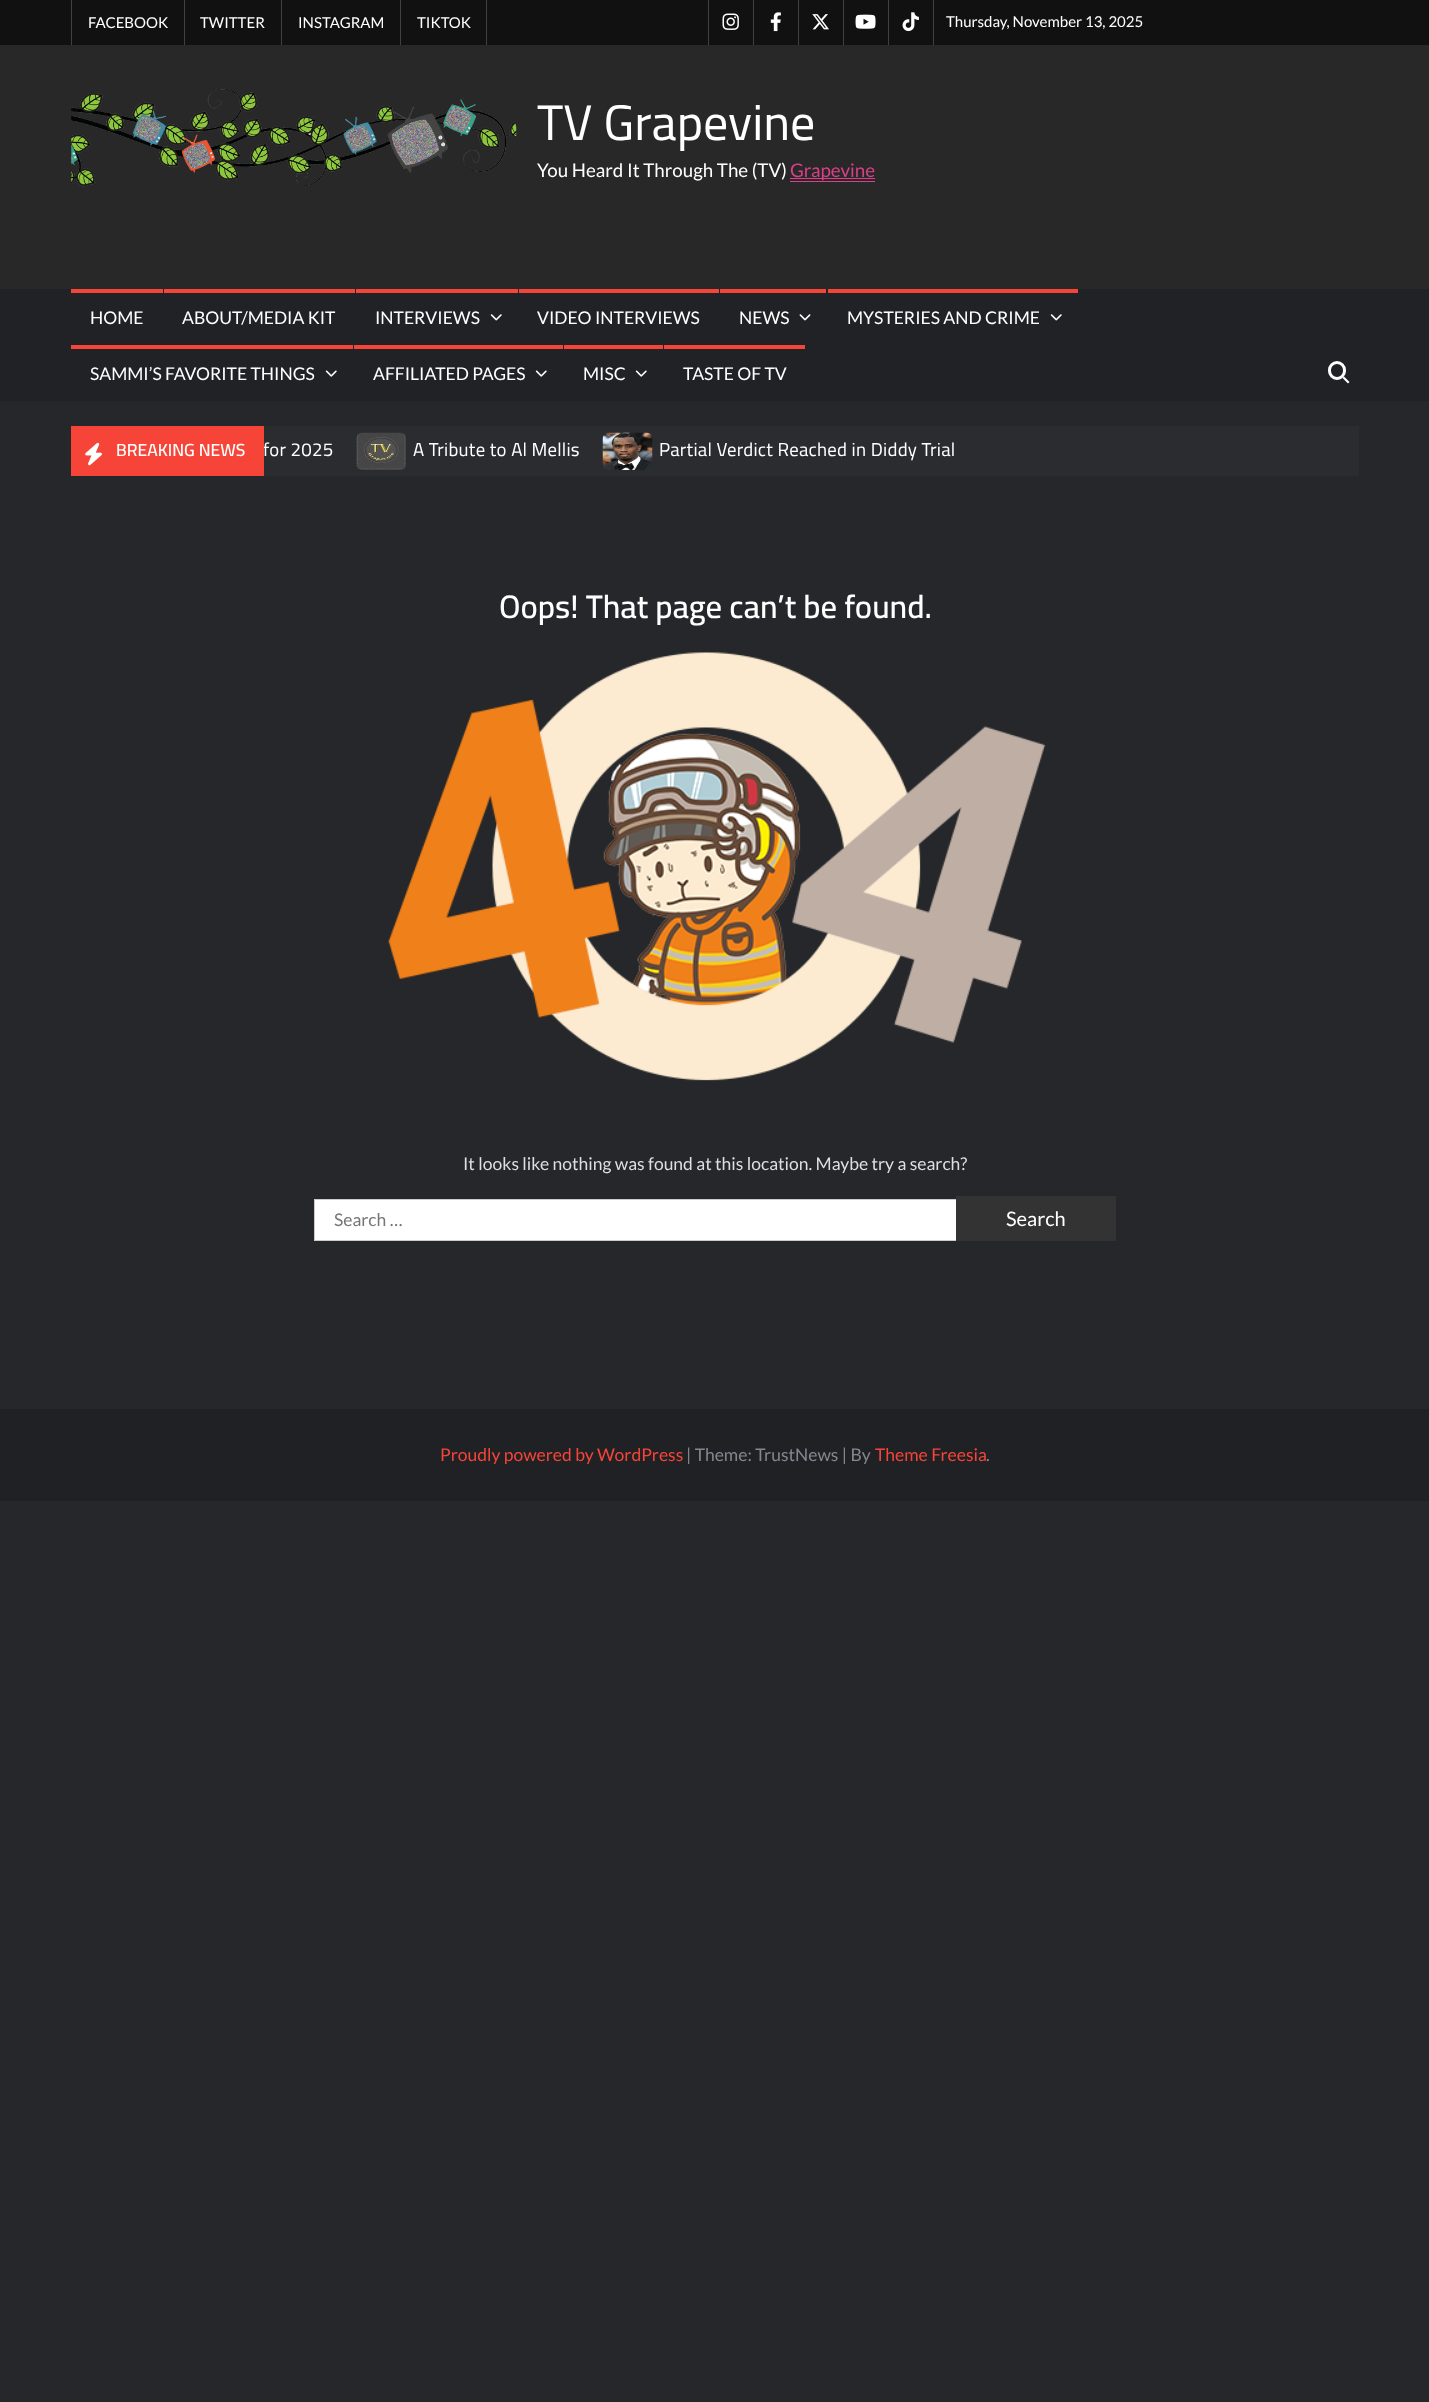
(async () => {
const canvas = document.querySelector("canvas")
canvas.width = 1429
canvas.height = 2402
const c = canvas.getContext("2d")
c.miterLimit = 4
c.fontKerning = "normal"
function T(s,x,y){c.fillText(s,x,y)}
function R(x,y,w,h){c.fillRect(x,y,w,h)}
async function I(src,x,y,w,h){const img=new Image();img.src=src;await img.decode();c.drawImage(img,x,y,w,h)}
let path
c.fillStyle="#25272b"
R(0,0,1429,2402)
c.fillStyle="#111"
R(0,0,1429,45)
c.fillStyle="#414141"
R(71,0,1,45)
c.font="15px Lato"
c.fillStyle="#fff"
T("FACEBOOK",88,28)
c.fillStyle="#414141"
R(184,0,1,45)
c.fillStyle="#fff"
T("TWITTER",200,28)
c.fillStyle="#414141"
R(281,0,1,45)
c.fillStyle="#fff"
T("INSTAGRAM",298,28)
c.fillStyle="#414141"
R(486,0,1,45)
R(400,0,1,45)
c.fillStyle="#fff"
T("TIKTOK",417,28)
c.fillStyle="#414141"
R(753,0,1,45)
R(708,0,1,45)
await I("1.png",722,13,17,17)
R(798,0,1,45)
await I("2.png",770,12,11,20)
R(843,0,1,45)
await I("3.png",812,14,17,16)
R(888,0,1,45)
await I("4.png",855,14,21,15)
R(933,0,1,45)
await I("5.png",902,12,17,20)
c.fillStyle="#fff"
T("Thursday, November 13, 2025",946,27)
c.fillStyle="#282828"
R(0,45,1429,244)
await I("6.png",71,88,446,99)
c.font="50px Cairo"
c.fillStyle="#fff"
T("TV Grapevine",537,140)
c.font="18.75px Lato"
T("You Heard It Through The (TV)",537,177)
c.fillStyle="#d84189"
R(790,178,85,1)
T("Grapevine",790,177)
R(790,181,85,1)
c.fillStyle="#212226"
R(0,289,1429,112)
c.fillStyle="#f64538"
R(71,289,92,4)
c.font="17.5px Lato"
c.fillStyle="#fff"
T("HOME",90,324)
c.fillStyle="#f64538"
R(164,289,191,4)
c.fillStyle="#fff"
T("ABOUT/MEDIA KIT",182,324)
c.fillStyle="#f64538"
R(356,289,162,4)
c.fillStyle="#fff"
T("INTERVIEWS",375,324)
await I("7.png",490,314,12,7)
c.fillStyle="#f64538"
R(519,289,200,4)
c.fillStyle="#fff"
T("VIDEO INTERVIEWS",537,324)
c.fillStyle="#f64538"
R(720,289,106,4)
c.fillStyle="#fff"
T("NEWS",739,324)
await I("8.png",799,314,12,7)
c.fillStyle="#f64538"
R(828,289,250,4)
c.fillStyle="#fff"
T("MYSTERIES AND CRIME",847,324)
await I("7.png",1050,314,12,7)
c.fillStyle="#f64538"
R(71,345,282,4)
c.fillStyle="#fff"
T("SAMMI’S FAVORITE THINGS",90,380)
await I("9.png",325,370,12,7)
c.fillStyle="#f64538"
R(354,345,209,4)
c.fillStyle="#fff"
T("AFFILIATED PAGES",373,380)
await I("9.png",535,370,12,7)
c.fillStyle="#f64538"
R(564,345,99,4)
c.fillStyle="#fff"
T("MISC",583,380)
await I("9.png",635,370,12,7)
c.fillStyle="#f64538"
R(664,345,141,4)
c.fillStyle="#fff"
T("TASTE OF TV",683,380)
c.beginPath()
c.roundRect(1329.5,362.5,15,16,7.5)
c.strokeStyle="#fff"
c.lineWidth=3
c.stroke()
path = new Path2D("M1344 376.5l5.5 5.5l-1.5 1.5l-5.5-5.5z")
c.fill(path)
c.fillStyle="#2a2c30"
R(264,426,1095,50)
c.letterSpacing="0.25px"
c.font="18.75px Cairo"
c.fillStyle="#fff"
T("for 2025",263,456)
c.fillStyle="#f64538"
R(71,426,193,50)
await I("10.png",85,442,17,24)
c.letterSpacing="0px"
c.font="600 17.5px Cairo"
c.fillStyle="#fff"
T("BREAKING NEWS",116,456)
await I("11.png",356,432,50,38)
c.letterSpacing="0.25px"
c.font="18.75px Cairo"
T("A Tribute to Al Mellis",413,456)
await I("12.png",602,432,51,38)
T("Partial Verdict Reached in Diddy Trial",659,456)
c.letterSpacing="0px"
c.font="600 32.5px Cairo"
T("Oops! That page can’t be found.",499,618)
await I("13.png",388,652,658,429)
c.font="17.5px Lato"
c.fillStyle="#dfdfdf"
T("It looks like nothing was found at this location. Maybe try a search?",463,1170)
c.fillStyle="#fff"
R(315,1200,641,40)
c.strokeStyle="#ccc"
c.lineWidth=1
c.strokeRect(314.5,1199.5,643,41)
c.fillStyle="#757575"
T("Search …",334,1226)
c.fillStyle="#333"
R(956,1196,160,45)
c.font="20px Lato"
c.fillStyle="#fff"
T("Search",1006,1226)
c.fillStyle="#202125"
R(0,1409,1429,92)
c.font="17.5px Lato"
c.fillStyle="#f64538"
T("Proudly powered by WordPress",440,1461)
c.fillStyle="#848790"
T("| Theme: TrustNews | By",686,1461)
c.fillStyle="#f64538"
T("Theme Freesia",875,1461)
c.fillStyle="#848790"
T(".",986,1461)
})()
